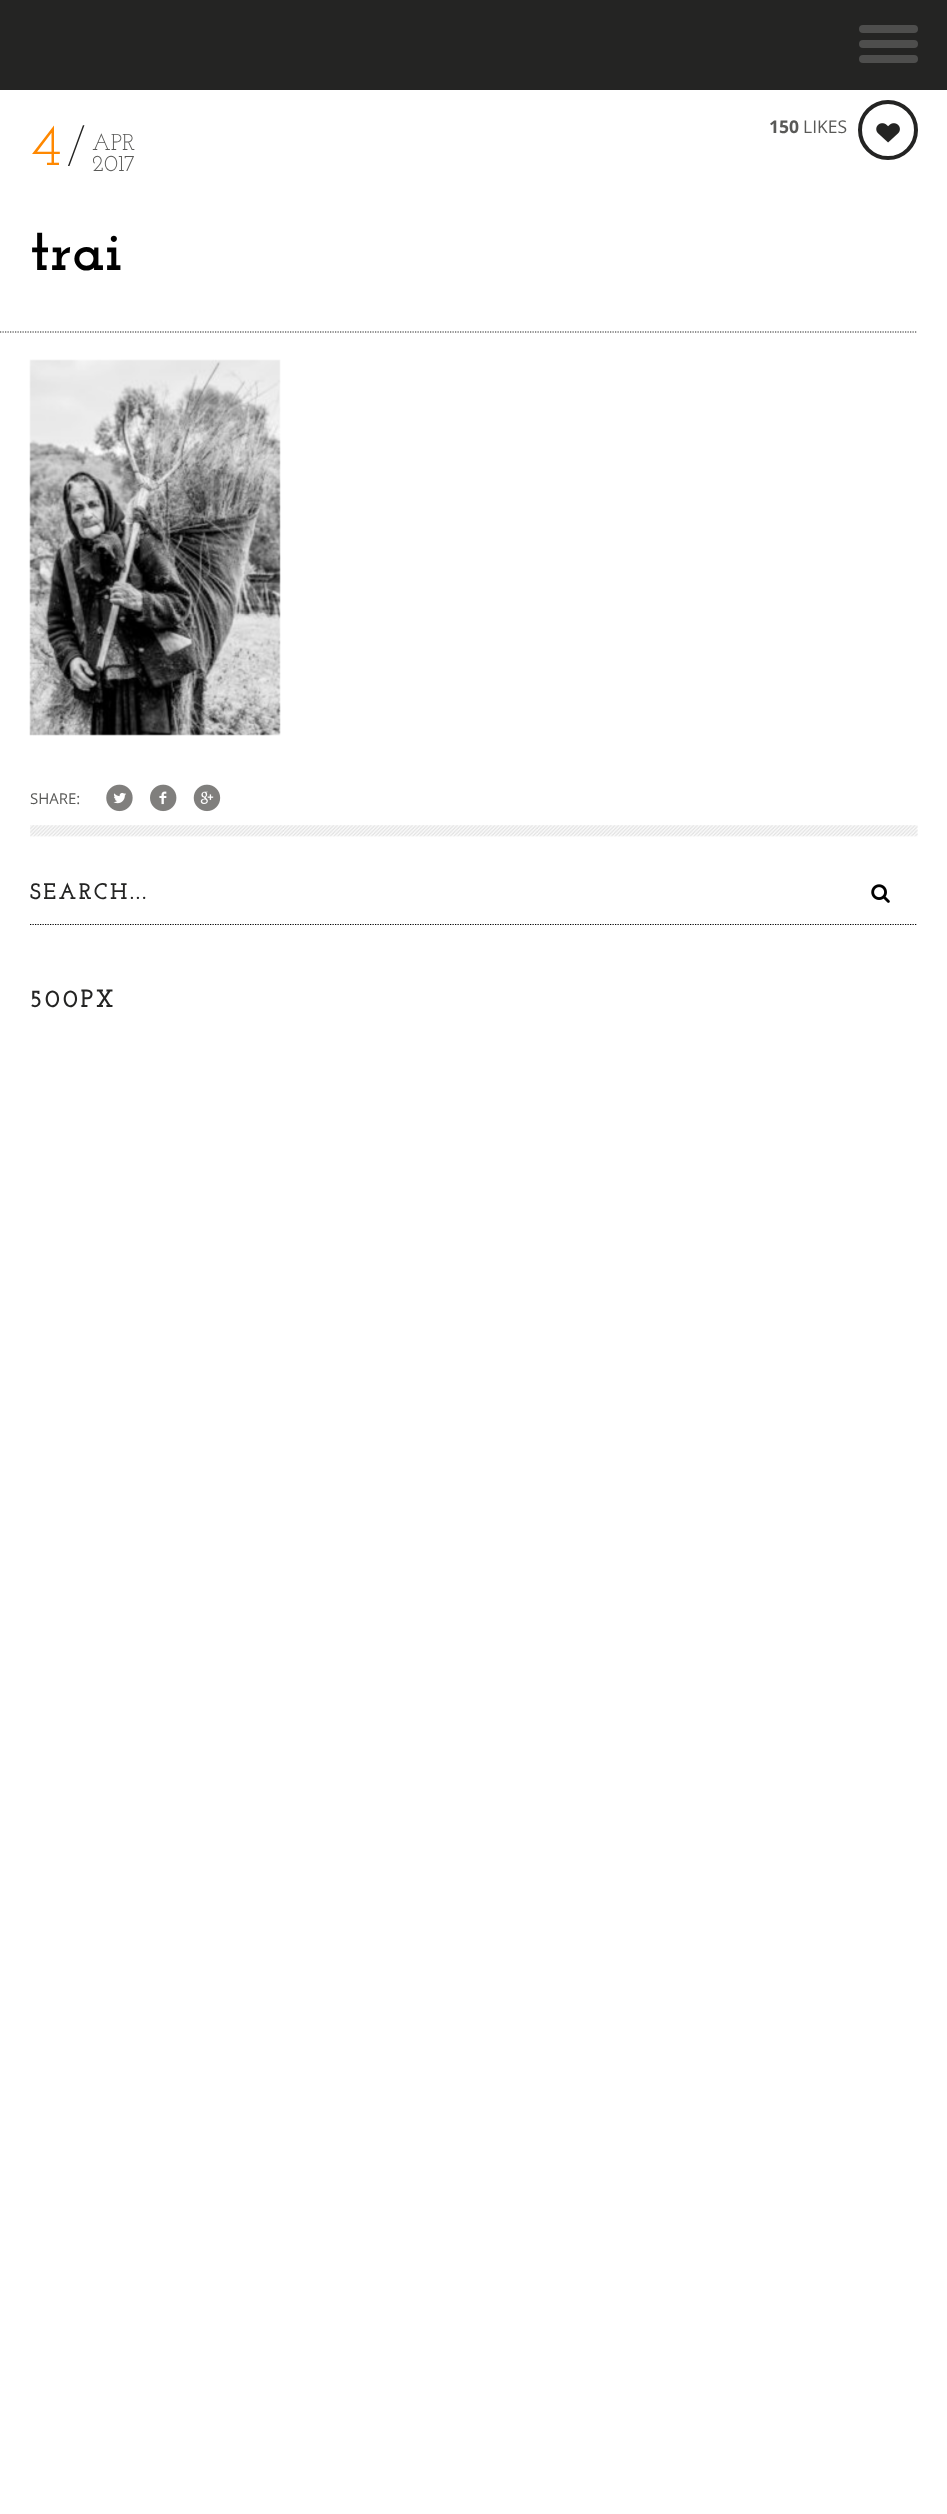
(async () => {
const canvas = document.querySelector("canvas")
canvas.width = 947
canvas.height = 2514
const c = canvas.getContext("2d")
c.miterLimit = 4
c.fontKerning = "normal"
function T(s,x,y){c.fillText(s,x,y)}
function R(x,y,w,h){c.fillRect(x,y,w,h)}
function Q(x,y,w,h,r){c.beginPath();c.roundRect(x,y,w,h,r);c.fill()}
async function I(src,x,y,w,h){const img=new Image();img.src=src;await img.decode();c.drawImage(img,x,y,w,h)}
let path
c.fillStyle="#fff"
R(0,0,947,2514)
c.fillStyle="#242423"
R(0,0,947,90)
c.fillStyle="#4e4e4d"
Q(859,40,59,8,4)
Q(859,25,59,8,4)
Q(859,55,59,8,4)
c.font="60px Josefin Slab"
c.fillStyle="#f80"
T("4",30,165)
c.font="300 54px Josefin Slab"
c.fillStyle="#242423"
T("/",67,165)
c.font="23px Josefin Slab"
c.fillStyle="#595957"
T("APR",92,150)
T("2017",92,171)
c.font="bold 60px Josefin Slab"
c.fillStyle="#000"
T("trai",30,270)
path = new Path2D("M-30 332h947.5")
c.strokeStyle="#242423"
c.lineWidth=1.2
c.setLineDash([1.25,1.25])
c.stroke(path)
c.font="bold 17.5px Open Sans"
c.fillStyle="#595957"
T("150",769,133)
c.font="17.5px Open Sans"
T("LIKES",803,133)
c.beginPath()
c.arc(888,130,28,0,7)
c.lineWidth=4
c.setLineDash([])
c.stroke()
await I("1.png",876,123,24,20)
await I("2.png",29,359,252,377)
c.font="15px Open Sans"
T("SHARE:",30,804)
await I("3.png",106,784,27,28)
await I("4.png",150,784,27,28)
await I("5.png",193,784,28,28)
await I("6.png",30,825,888,12)
path = new Path2D("M30 924.5h887.5")
c.strokeStyle="#000"
c.lineWidth=1.2
c.setLineDash([1.25,1.25])
c.stroke(path)
c.fillStyle="#fff"
R(30,923,814,1)
c.letterSpacing="2.5px"
c.font="bold 22.5px Josefin Slab"
c.fillStyle="#242423"
T("SEARCH...",30,899)
await I("7.png",871,884,19,19)
c.font="bold 25px Josefin Slab"
T("500PX",30,1007)
})()
